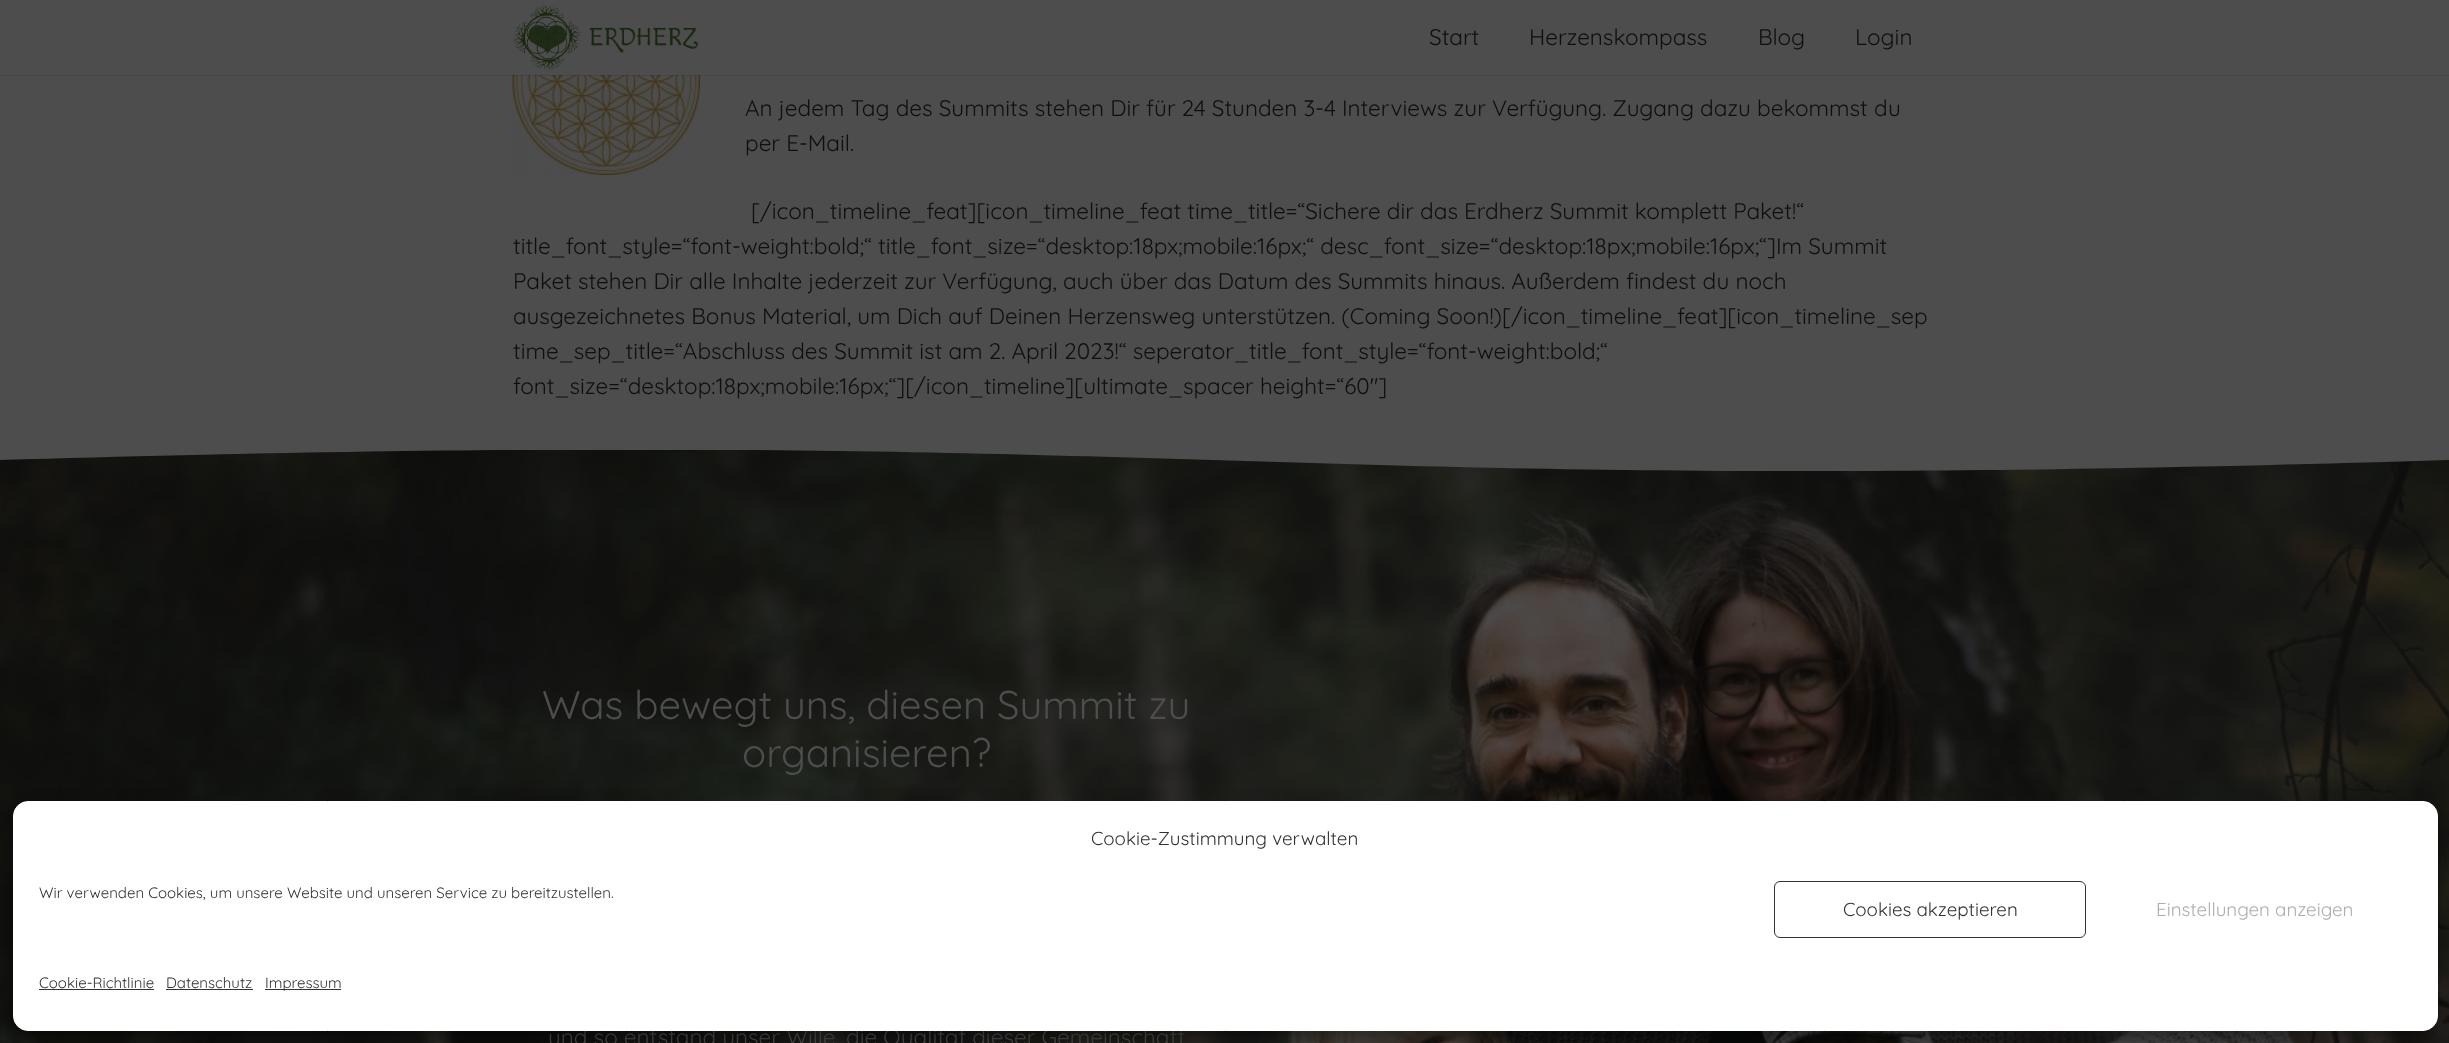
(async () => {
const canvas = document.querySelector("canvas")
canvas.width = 2449
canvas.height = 1043
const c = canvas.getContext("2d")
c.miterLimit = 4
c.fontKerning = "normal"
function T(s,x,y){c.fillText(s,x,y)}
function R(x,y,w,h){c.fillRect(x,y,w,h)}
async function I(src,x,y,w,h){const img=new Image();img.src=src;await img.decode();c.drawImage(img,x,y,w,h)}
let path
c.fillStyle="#4d4d4d"
R(0,0,2449,1043)
await I("2.png",512,75,188,100)
c.fillStyle="#00000014"
R(0,75,2449,1)
await I("1.png",513,4,185,67)
c.font="22.5px Quicksand"
c.fillStyle="#0f0f0f"
T("Start",1429,45)
T("Herzenskompass",1529,45)
T("Blog",1758,45)
T("Login",1855,45)
T("An jedem Tag des Summits stehen Dir für 24 Stunden 3-4 Interviews zur Verfügung. Zugang dazu bekommst du",745,116)
T("per E-Mail.",745,151)
T("[/icon_timeline_feat][icon_timeline_feat time_title=“Sichere dir das Erdherz Summit komplett Paket!“",751,219)
T("title_font_style=“font-weight:bold;“ title_font_size=“desktop:18px;mobile:16px;“ desc_font_size=“desktop:18px;mobile:16px;“]Im Summit",513,254)
T("Paket stehen Dir alle Inhalte jederzeit zur Verfügung, auch über das Datum des Summits hinaus. Außerdem findest du noch",513,289)
T("ausgezeichnetes Bonus Material, um Dich auf Deinen Herzensweg unterstützen. (Coming Soon!)[/icon_timeline_feat][icon_timeline_sep",513,324)
T("time_sep_title=“Abschluss des Summit ist am 2. April 2023!“ seperator_title_font_style=“font-weight:bold;“",513,359)
T("font_size=“desktop:18px;mobile:16px;“][/icon_timeline][ultimate_spacer height=“60″]",513,394)
await I("3.png",0,450,2449,593)
c.save()
c.beginPath()
c.rect(0,449,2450,25)
c.clip()
c.fillStyle="#4d4d4d"
path = new Path2D("M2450 460c-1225 38-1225-37-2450 0v-12h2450z")
c.fill(path)
c.restore()
c.font="40px Quicksand"
c.fillStyle="#4d4d4d"
T("Was bewegt uns, diesen Summit zu",542,719)
T("organisieren?",742,767)
c.font="22.5px Quicksand"
T("und so entstand unser Wille, die Qualität dieser Gemeinschaft",548,1045)
c.fillStyle="#0000003b"
c.filter="blur(4px)"
c.beginPath()
c.roundRect(13,809,2425,230,15)
c.fill()
c.filter="none"
c.fillStyle="#00000030"
c.filter="blur(12.5px)"
c.beginPath()
c.roundRect(13,814,2425,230,15)
c.fill()
c.filter="none"
c.fillStyle="#fff"
c.beginPath()
c.roundRect(13.5,801.5,2424,229,14.5)
c.fill()
c.strokeStyle="#fff"
c.stroke()
c.font="18.75px Quicksand"
c.fillStyle="#333"
T("Cookie-Zustimmung verwalten",1091,845)
c.font="15px Quicksand"
T("Wir verwenden Cookies, um unsere Website und unseren Service zu bereitzustellen.",39,898)
c.beginPath()
c.roundRect(1774.5,881.5,311,56,5.5)
c.strokeStyle="#333"
c.stroke()
c.font="18.75px Quicksand"
T("Cookies akzeptieren",1843,916)
c.fillStyle="#adadad"
T("Einstellungen anzeigen",2156,916)
c.font="15px Quicksand"
c.fillStyle="#333"
T("Cookie-Richtlinie",39,988)
R(39,989,115,1)
T("Datenschutz",166,988)
R(166,989,87,1)
R(265,989,76,1)
T("Impressum",265,988)
})()
